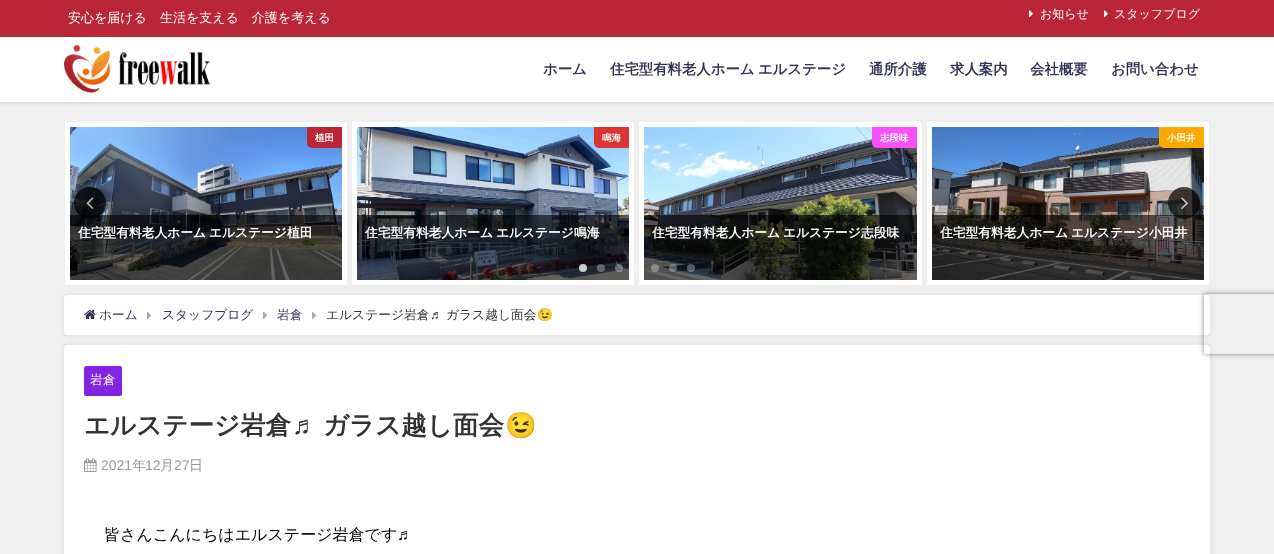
(async () => {
const canvas = document.querySelector("canvas")
canvas.width = 1274
canvas.height = 554
const c = canvas.getContext("2d")
c.miterLimit = 4
c.fontKerning = "normal"
function T(s,x,y){c.fillText(s,x,y)}
function R(x,y,w,h){c.fillRect(x,y,w,h)}
function Q(x,y,w,h,r){c.beginPath();c.roundRect(x,y,w,h,r);c.fill()}
async function I(src,x,y,w,h){const img=new Image();img.src=src;await img.decode();c.drawImage(img,x,y,w,h)}
let path
c.fillStyle="#efefef"
R(0,0,1274,554)
c.fillStyle="#00000033"
c.filter="blur(2px)"
c.beginPath()
c.rect(0,0,1274,102)
c.fill()
c.filter="none"
c.fillStyle="#fff"
R(0,37,1274,65)
c.fillStyle="#ba2636"
R(0,0,1274,37)
c.font="500 13px WenQuanYi Zen Hei"
c.fillStyle="#fff"
T("安心を届ける　生活を支える　介護を考える",68,22)
await I("1.png",1029,10,4,8)
c.font="500 12px WenQuanYi Zen Hei"
T("お知らせ",1040,18)
await I("1.png",1104,10,4,8)
T("スタッフブログ",1114,18)
await I("2.png",64,45,147,49)
c.font="bold 14.4px WenQuanYi Zen Hei"
c.fillStyle="#335"
T("ホーム",543,74)
c.wordSpacing="-1px"
T("住宅型有料老人ホーム エルステージ",610,74)
c.wordSpacing="0px"
T("通所介護",869,74)
T("求人案内",950,74)
T("会社概要",1030,74)
T("お問い合わせ",1111,74)
c.fillStyle="#fff"
R(65,122,282,163)
await I("3.png",70,127,272,153)
c.fillStyle="#ba2636"
c.beginPath()
c.roundRect(307,127,35,21,[0,0,0,5])
c.fill()
c.font="bold 9.5px WenQuanYi Zen Hei"
c.fillStyle="#fff"
T("植田",315,141)
c.fillStyle="#00000099"
R(70,215,272,65)
c.wordSpacing="-1px"
c.font="bold 12.75px WenQuanYi Zen Hei"
c.fillStyle="#fff"
T("住宅型有料老人ホーム エルステージ植田",78,237)
R(352,122,282,163)
await I("4.png",357,127,272,153)
c.fillStyle="#d33"
c.beginPath()
c.roundRect(594,127,35,21,[0,0,0,5])
c.fill()
c.wordSpacing="0px"
c.font="bold 9.5px WenQuanYi Zen Hei"
c.fillStyle="#fff"
T("鳴海",602,141)
c.fillStyle="#00000099"
R(357,215,272,65)
c.wordSpacing="-1px"
c.font="bold 12.75px WenQuanYi Zen Hei"
c.fillStyle="#fff"
T("住宅型有料老人ホーム エルステージ鳴海",365,237)
R(639,122,283,163)
await I("5.png",644,127,273,153)
c.fillStyle="#f74ff9"
c.beginPath()
c.roundRect(872,127,45,21,[0,0,0,5])
c.fill()
c.wordSpacing="0px"
c.font="bold 9.5px WenQuanYi Zen Hei"
c.fillStyle="#fff"
T("志段味",880,141)
c.fillStyle="#00000099"
R(644,215,273,65)
c.wordSpacing="-1px"
c.font="bold 12.75px WenQuanYi Zen Hei"
c.fillStyle="#fff"
T("住宅型有料老人ホーム エルステージ志段味",652,237)
R(927,122,282,163)
await I("6.png",932,127,272,153)
c.fillStyle="#fca800"
c.beginPath()
c.roundRect(1159,127,45,21,[0,0,0,5])
c.fill()
c.wordSpacing="0px"
c.font="bold 9.5px WenQuanYi Zen Hei"
c.fillStyle="#fff"
T("小田井",1167,141)
c.fillStyle="#00000099"
R(932,215,272,65)
c.wordSpacing="-1px"
c.font="bold 12.75px WenQuanYi Zen Hei"
c.fillStyle="#fff"
T("住宅型有料老人ホーム エルステージ小田井",940,237)
c.fillStyle="#000000b3"
c.beginPath()
c.arc(90,203,16,0,7)
c.fill()
await I("7.png",86,197,8,12)
c.beginPath()
c.arc(1184,203,16,0,7)
c.fill()
await I("8.png",1181,197,7,12)
c.fillStyle="#ccc"
c.beginPath()
c.arc(583,268,4,0,7)
c.fill()
c.fillStyle="#ffffff4d"
c.beginPath()
c.arc(601,268,4,0,7)
c.fill()
c.beginPath()
c.arc(619,268,4,0,7)
c.fill()
c.beginPath()
c.arc(637,268,4,0,7)
c.fill()
c.beginPath()
c.arc(655,268,4,0,7)
c.fill()
c.beginPath()
c.arc(673,268,4,0,7)
c.fill()
c.beginPath()
c.arc(691,268,4,0,7)
c.fill()
c.fillStyle="#96969633"
c.filter="blur(2.5px)"
c.beginPath()
c.roundRect(64,295,1146,40,4)
c.fill()
c.filter="none"
c.fillStyle="#fff"
Q(64,295,1146,40,4)
await I("9.png",84,309,12,10)
c.wordSpacing="0px"
c.font="500 12.75px WenQuanYi Zen Hei"
c.fillStyle="#335"
T("ホーム",99,319)
await I("10.png",147,311,4,8)
T("スタッフブログ",162,319)
await I("10.png",263,311,4,8)
T("岩倉",277,319)
await I("10.png",312,311,4,8)
c.fillStyle="#333"
T("エルステージ岩倉",326,319)
c.font="12.75px Liberation Sans"
T("♬",430,319)
c.font="500 12.75px WenQuanYi Zen Hei"
T("ガラス越し面会",446,319)
c.font="12.75px Noto Color Emoji"
T("😉",537,319)
c.fillStyle="#96969633"
c.filter="blur(2.5px)"
c.beginPath()
c.roundRect(64,345,1146,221,4)
c.fill()
c.filter="none"
c.fillStyle="#fff"
Q(64,345,1146,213,4)
c.fillStyle="#8224e3"
Q(84,366,38,30,2)
c.font="500 12.75px WenQuanYi Zen Hei"
c.fillStyle="#fff"
T("岩倉",90,384)
c.font="bold 25.5px WenQuanYi Zen Hei"
c.fillStyle="#333"
T("エルステージ岩倉",84,434)
c.font="bold 25.5px Liberation Sans"
T("♬",292,434)
c.font="bold 25.5px WenQuanYi Zen Hei"
T("ガラス越し面会",323,434)
c.font="bold 25.5px Noto Color Emoji"
T("😉",505,434)
await I("11.png",84,458,13,14)
c.font="14px Liberation Sans"
c.fillStyle="#999"
T("2021",101,470)
c.font="500 14px WenQuanYi Zen Hei"
T("年",132,470)
c.font="14px Liberation Sans"
T("12",145,470)
c.font="500 14px WenQuanYi Zen Hei"
T("月",160,470)
c.font="14px Liberation Sans"
T("27",174,470)
c.font="500 14px WenQuanYi Zen Hei"
T("日",189,470)
c.font="500 16px WenQuanYi Zen Hei"
c.fillStyle="#000"
T("皆さんこんにちはエルステージ岩倉です",104,540)
c.font="16px Liberation Sans"
T("♬",397,540)
c.save()
path = new Path2D("M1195 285h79v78h-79zm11 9h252c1 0 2 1 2 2v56c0 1-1 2-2 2h-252c-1 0-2-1-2-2v-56c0-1 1-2 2-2z")
c.clip(path,"evenodd")
c.fillStyle="#808080"
c.filter="blur(2.5px)"
c.beginPath()
c.roundRect(1204,294,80,60,2)
c.fill()
c.filter="none"
c.restore()
})()
